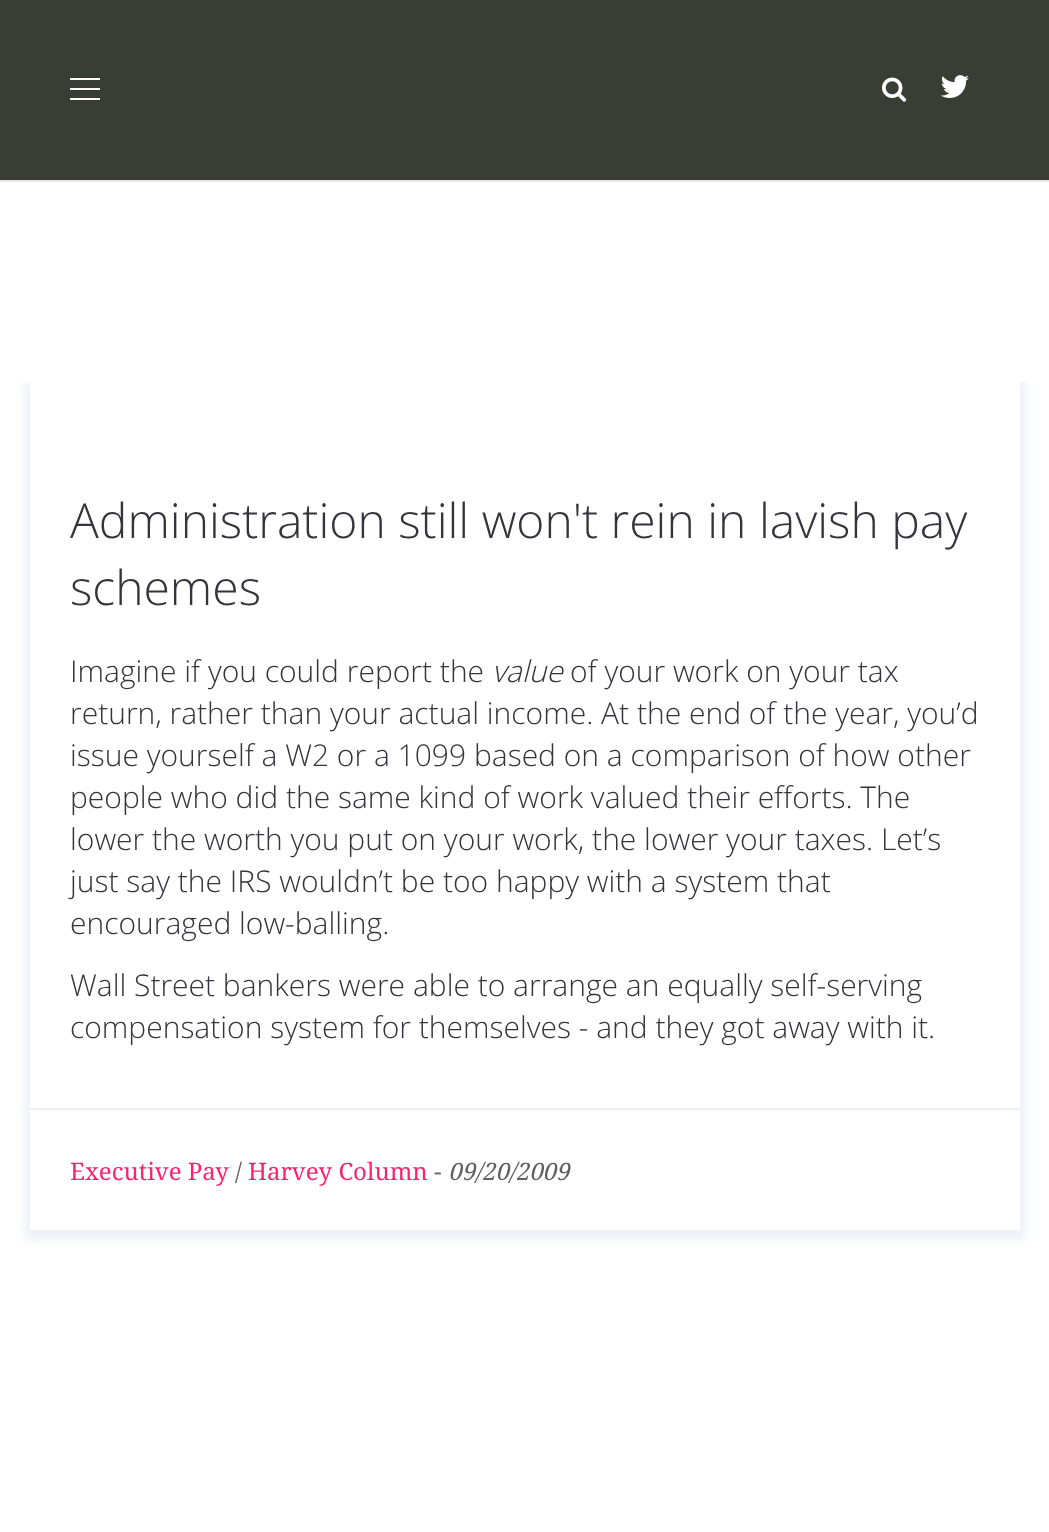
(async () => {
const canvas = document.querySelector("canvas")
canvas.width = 1049
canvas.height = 1532
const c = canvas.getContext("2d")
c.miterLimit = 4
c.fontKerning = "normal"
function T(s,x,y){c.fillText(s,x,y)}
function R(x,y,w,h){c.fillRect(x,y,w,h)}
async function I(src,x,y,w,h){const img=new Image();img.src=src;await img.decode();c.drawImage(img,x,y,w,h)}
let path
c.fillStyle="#fff"
R(0,0,1049,1532)
c.fillStyle="#e8e8ec"
R(0,180,1049,2)
c.fillStyle="#393e35"
R(0,0,1049,180)
c.fillStyle="#fff"
R(70,98,30,2)
R(70,78,30,2)
R(70,88,30,2)
await I("1.png",882,77,25,25)
await I("2.png",941,75,28,23)
c.save()
c.beginPath()
c.rect(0,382,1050,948)
c.clip()
path = new Path2D("M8 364h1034v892h-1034zm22 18h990v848h-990z")
c.clip(path,"evenodd")
c.fillStyle="#eff1f8"
c.filter="blur(5px)"
c.beginPath()
c.rect(24,380,1002,860)
c.fill()
c.filter="none"
c.restore()
c.font="300 48px Open Sans"
c.fillStyle="#34343c"
T("Administration still won't rein in lavish pay",70,538)
T("schemes",70,605)
c.font="300 30px Open Sans"
T("Imagine if you could report the",70,682)
c.font="italic 300 30px Open Sans"
T("value",492,682)
c.font="300 30px Open Sans"
T("of your work on your tax",570,682)
T("return, rather than your actual income. At the end of the year, you’d",70,724)
T("issue yourself a W2 or a 1099 based on a comparison of how other",70,766)
T("people who did the same kind of work valued their efforts. The",70,808)
T("lower the worth you put on your work, the lower your taxes. Let’s",70,850)
T("just say the IRS wouldn’t be too happy with a system that",70,892)
T("encouraged low-balling.",70,934)
T("Wall Street bankers were able to arrange an equally self-serving",70,996)
T("compensation system for themselves - and they got away with it.",70,1038)
c.fillStyle="#ebeef6"
R(30,1108,990,2)
c.font="24px Droid Serif"
c.fillStyle="#ff206e"
T("Executive Pay",70,1180)
c.fillStyle="#606060"
T("/",235,1180)
c.fillStyle="#ff206e"
T("Harvey Column",248,1180)
c.fillStyle="#606060"
T("-",434,1180)
c.font="italic 24px Droid Serif"
T("09/20/2009",448,1180)
})()
